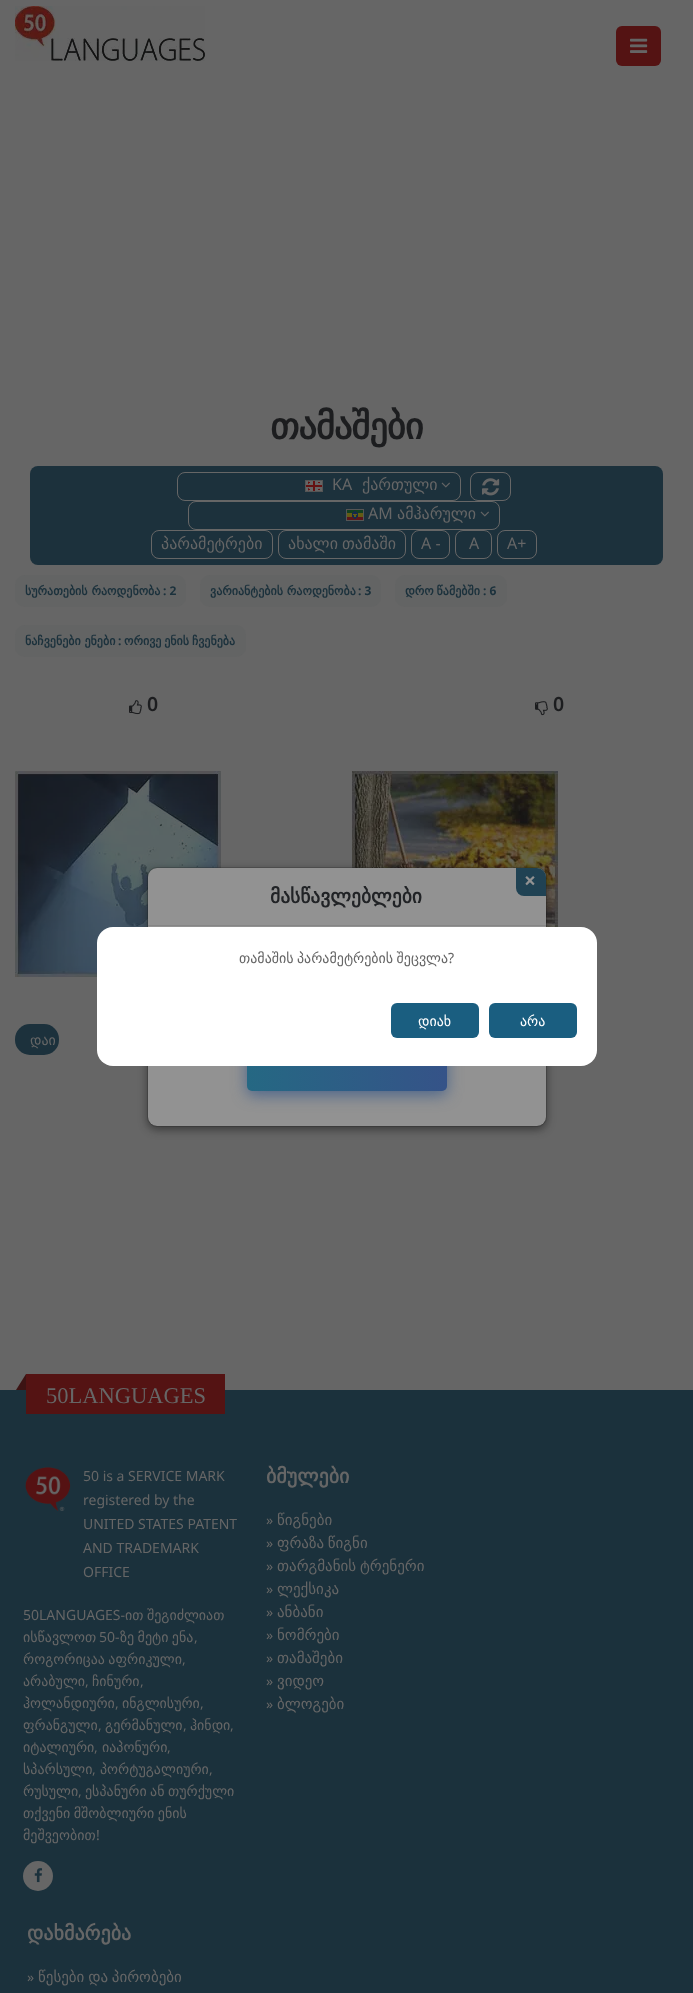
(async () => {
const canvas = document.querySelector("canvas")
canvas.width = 693
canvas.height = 1993
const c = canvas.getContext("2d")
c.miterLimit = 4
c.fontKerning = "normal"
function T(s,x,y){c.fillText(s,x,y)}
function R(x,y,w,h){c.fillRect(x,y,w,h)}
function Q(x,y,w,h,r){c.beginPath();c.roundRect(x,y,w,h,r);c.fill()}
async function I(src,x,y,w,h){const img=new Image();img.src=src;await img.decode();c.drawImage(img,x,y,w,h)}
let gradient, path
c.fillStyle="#666"
R(0,0,693,1993)
await I("1.png",15,6,190,55)
c.fillStyle="#541313"
Q(616,26,45,40,6)
await I("2.png",630,38,18,15)
c.letterSpacing="-1px"
c.font="bold 36.5px DejaVu Sans"
c.fillStyle="#1c1d1f"
T("თამაშები",270,439)
c.fillStyle="#1c313c"
Q(30,466,633,99,8)
c.beginPath()
c.roundRect(177.5,472.5,283,28,7.5)
c.strokeStyle="#666"
c.stroke()
await I("3.png",305,480,18,12)
c.letterSpacing="0px"
c.font="16px Noto Sans"
c.fillStyle="#666"
T("KA",332,490)
c.font="16px DejaVu Sans"
T("ქართული",362,490)
await I("4.png",441,482,9,6)
c.beginPath()
c.roundRect(470.5,472.5,40,28,7.5)
c.stroke()
await I("5.png",482,478,18,18)
c.beginPath()
c.roundRect(188.5,501.5,311,28,7.5)
c.stroke()
await I("6.png",346,509,18,12)
c.font="16px Noto Sans"
T("AM",368,519)
c.font="16px DejaVu Sans"
T("ამჰარული",397,519)
await I("4.png",480,511,9,6)
c.beginPath()
c.roundRect(151.5,530.5,121,28,7.5)
c.stroke()
T("პარამეტრები",161,549)
c.beginPath()
c.roundRect(278.5,530.5,127,28,7.5)
c.stroke()
c.wordSpacing="-1px"
T("ახალი თამაში",288,549)
c.beginPath()
c.roundRect(411.5,530.5,38,28,7.5)
c.stroke()
c.wordSpacing="0px"
c.font="16px Noto Sans"
T("A -",421,549)
c.beginPath()
c.roundRect(455.5,530.5,36,28,7.5)
c.stroke()
T("A",469,549)
c.beginPath()
c.roundRect(497.5,530.5,39,28,7.5)
c.stroke()
T("A+",507,549)
c.fillStyle="#636464"
Q(15,575,171,32,10)
c.font="bold 12px DejaVu Sans"
c.fillStyle="#1b313c"
T("სურათების რაოდენობა",25,595)
c.font="bold 12px Noto Sans"
T(": 2",163,595)
c.fillStyle="#636464"
Q(200,575,181,32,10)
c.font="bold 12px DejaVu Sans"
c.fillStyle="#1b313c"
T("ვარიანტების რაოდენობა",210,595)
c.font="bold 12px Noto Sans"
T(": 3",358,595)
c.fillStyle="#636464"
Q(395,575,112,32,10)
c.wordSpacing="-1px"
c.font="bold 12px DejaVu Sans"
c.fillStyle="#1b313c"
T("დრო წამებში",405,595)
c.wordSpacing="0px"
c.font="bold 12px Noto Sans"
T(": 6",483,595)
c.fillStyle="#636464"
Q(15,625,231,32,10)
c.font="bold 12px DejaVu Sans"
c.fillStyle="#1b313c"
T("ნაჩვენები ენები",25,645)
c.font="bold 12px Noto Sans"
T(":",118,645)
c.wordSpacing="-1px"
c.font="bold 12px DejaVu Sans"
T("ორივე ენის ჩვენება",124,645)
await I("7.png",129,700,13,15)
c.wordSpacing="0px"
c.font="600 19.5px Noto Sans"
c.fillStyle="#1c1d1f"
T("0",147,711)
await I("8.png",535,701,13,15)
T("0",553,711)
await I("9.png",15,771,206,206)
await I("10.png",352,771,206,156)
c.fillStyle="#1c313c"
Q(15,1024,44,31,15)
c.wordSpacing="-1px"
c.font="14px DejaVu Sans"
c.fillStyle="#666"
T("დაი",30,1045)
c.fillStyle="#1b313c"
R(0,1390,693,603)
c.fillStyle="#541313"
R(26,1374,199,40)
c.fillStyle="#3c1313"
path = new Path2D("M26 1374v16h-10z")
c.fill(path)
c.wordSpacing="0px"
c.font="22.5px Liberation Serif"
c.fillStyle="#666"
T("50LANGUAGES",46,1403)
await I("11.png",25,1467,46,44)
c.font="14px Noto Sans"
T("50 is a SERVICE MARK",83,1481)
T("registered by the",83,1505)
T("UNITED STATES PATENT",83,1529)
T("AND TRADEMARK",83,1553)
T("OFFICE",83,1577)
T("50LANGUAGES-",23,1620)
c.wordSpacing="-1px"
c.font="14px DejaVu Sans"
T("ით შეგიძლიათ",125,1620)
c.wordSpacing="0px"
T("ისწავლოთ",23,1642)
c.font="14px Noto Sans"
T("50-",99,1642)
c.wordSpacing="-1px"
c.font="14px DejaVu Sans"
T("ზე მეტი ენა",120,1642)
c.wordSpacing="0px"
c.font="14px Noto Sans"
T(",",194,1642)
c.wordSpacing="-1px"
c.font="14px DejaVu Sans"
T("როგორიცაა აფრიკული",23,1664)
c.wordSpacing="0px"
c.font="14px Noto Sans"
T(",",182,1664)
c.font="14px DejaVu Sans"
T("არაბული",23,1686)
c.font="14px Noto Sans"
T(",",85,1686)
c.font="14px DejaVu Sans"
T("ჩინური",92,1686)
c.font="14px Noto Sans"
T(",",140,1686)
c.font="14px DejaVu Sans"
T("ჰოლანდიური",23,1708)
c.font="14px Noto Sans"
T(",",115,1708)
c.font="14px DejaVu Sans"
T("ინგლისური",122,1708)
c.font="14px Noto Sans"
T(",",200,1708)
c.font="14px DejaVu Sans"
T("ფრანგული",23,1730)
c.font="14px Noto Sans"
T(",",98,1730)
c.font="14px DejaVu Sans"
T("გერმანული",105,1730)
c.font="14px Noto Sans"
T(",",183,1730)
c.font="14px DejaVu Sans"
T("ჰინდი",190,1730)
c.font="14px Noto Sans"
T(",",230,1730)
c.font="14px DejaVu Sans"
T("იტალიური",23,1752)
c.font="14px Noto Sans"
T(",",94,1752)
c.font="14px DejaVu Sans"
T("იაპონური",102,1752)
c.font="14px Noto Sans"
T(",",167,1752)
c.font="14px DejaVu Sans"
T("სპარსული",23,1774)
c.font="14px Noto Sans"
T(",",92,1774)
c.font="14px DejaVu Sans"
T("პორტუგალიური",100,1774)
c.font="14px Noto Sans"
T(",",209,1774)
c.font="14px DejaVu Sans"
T("რუსული",23,1796)
c.font="14px Noto Sans"
T(",",78,1796)
c.wordSpacing="-1px"
c.font="14px DejaVu Sans"
T("ესპანური ან თურქული",85,1796)
T("თქვენი მშობლიური ენის",23,1818)
c.wordSpacing="0px"
T("მეშვეობით",23,1840)
c.font="14px Noto Sans"
T("!",96,1840)
c.beginPath()
c.arc(38,1876,15,0,7)
c.fill()
await I("12.png",34,1868,9,15)
c.font="bold 20px DejaVu Sans"
T("ბმულები",266,1483)
c.font="14px Noto Sans"
T("»",266,1525)
c.font="15px DejaVu Sans"
T("წიგნები",277,1525)
c.font="14px Noto Sans"
T("»",266,1548)
c.wordSpacing="-1px"
c.font="15px DejaVu Sans"
T("ფრაზა წიგნი",277,1548)
c.wordSpacing="0px"
c.font="14px Noto Sans"
T("»",266,1571)
c.wordSpacing="-1px"
c.font="15px DejaVu Sans"
T("თარგმანის ტრენერი",277,1571)
c.wordSpacing="0px"
c.font="14px Noto Sans"
T("»",266,1594)
c.font="15px DejaVu Sans"
T("ლექსიკა",277,1594)
c.font="14px Noto Sans"
T("»",266,1617)
c.font="15px DejaVu Sans"
T("ანბანი",277,1617)
c.font="14px Noto Sans"
T("»",266,1640)
c.font="15px DejaVu Sans"
T("ნომრები",277,1640)
c.font="14px Noto Sans"
T("»",266,1663)
c.font="15px DejaVu Sans"
T("თამაშები",277,1663)
c.font="14px Noto Sans"
T("»",266,1686)
c.font="15px DejaVu Sans"
T("ვიდეო",277,1686)
c.font="14px Noto Sans"
T("»",266,1709)
c.font="15px DejaVu Sans"
T("ბლოგები",277,1709)
c.font="bold 20px DejaVu Sans"
T("დახმარება",27,1940)
c.font="14px Noto Sans"
T("»",27,1982)
c.wordSpacing="-1px"
c.font="15px DejaVu Sans"
T("წესები და პირობები",38,1982)
c.fillStyle="#13131380"
c.filter="blur(4.5px)"
c.beginPath()
c.roundRect(147,870,400,260,10)
c.fill()
c.filter="none"
c.fillStyle="#929292"
Q(148,868,398,258,9)
c.beginPath()
c.roundRect(147.5,867.5,399,259,9.5)
c.strokeStyle="#13131333"
c.stroke()
c.fillStyle="#858585"
R(148,925,398,1)
c.save()
c.beginPath()
c.roundRect(148,868,398,258,9)
c.clip()
c.fillStyle="#204253"
c.beginPath()
c.roundRect(516,866,30,30,[0,8,0,8])
c.fill()
c.restore()
c.wordSpacing="0px"
c.font="bold 21px Noto Sans"
c.fillStyle="#929292"
T("×",524,888)
c.font="bold 19.5px DejaVu Sans"
c.fillStyle="#212326"
T("მასწავლებლები",270,903)
c.fillStyle="#335588bf"
c.filter="blur(7.5px)"
c.beginPath()
c.roundRect(247,1040,200,55,5)
c.fill()
c.filter="none"
gradient = c.createLinearGradient(247,1063,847,1063)
gradient.addColorStop(0,"#256883")
gradient.addColorStop(.33,"#355388")
gradient.addColorStop(.67,"#157292")
gradient.addColorStop(1,"#325689")
c.fillStyle = gradient
Q(247,1036,200,55,5)
c.fillStyle="#fff"
Q(97,927,500,139,16)
c.wordSpacing="-1px"
c.font="14px DejaVu Sans"
c.fillStyle="#666"
T("თამაშის პარამეტრების შეცვლა",239,963)
c.wordSpacing="0px"
c.font="14px Noto Sans"
T("?",448,963)
c.fillStyle="#1a5e80"
Q(391,1003,88,35,6)
c.font="14px DejaVu Sans"
c.fillStyle="#fff"
T("დიახ",418,1026)
c.fillStyle="#1a5e80"
Q(489,1003,88,35,6)
c.fillStyle="#fff"
T("არა",520,1026)
})()
